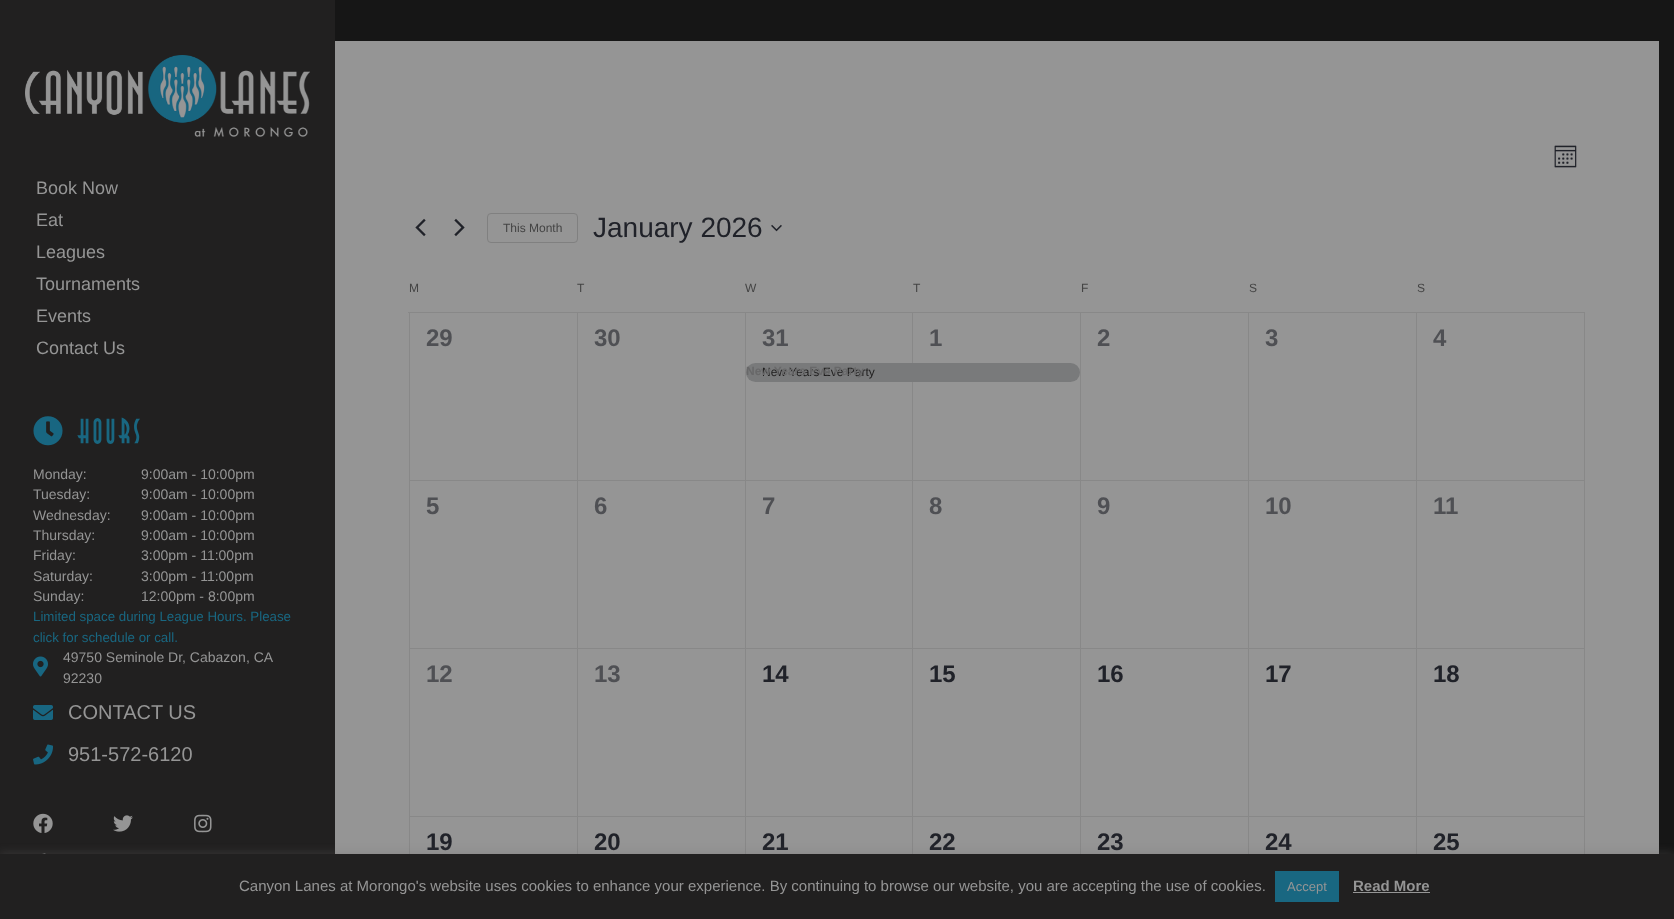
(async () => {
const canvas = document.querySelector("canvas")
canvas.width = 1674
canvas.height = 919
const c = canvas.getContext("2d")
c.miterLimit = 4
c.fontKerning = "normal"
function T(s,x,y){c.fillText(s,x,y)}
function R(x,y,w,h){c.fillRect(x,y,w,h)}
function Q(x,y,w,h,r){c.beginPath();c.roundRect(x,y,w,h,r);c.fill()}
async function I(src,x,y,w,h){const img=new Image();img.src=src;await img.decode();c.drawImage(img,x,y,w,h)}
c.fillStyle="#161616"
R(0,0,1674,919)
c.fillStyle="#212020"
R(0,0,335,854)
await I("1.png",25,55,285,82)
c.font="18px Liberation Sans"
c.fillStyle="#959595"
T("Book Now",36,194)
T("Eat",36,226)
T("Leagues",36,258)
T("Tournaments",36,290)
T("Events",36,322)
T("Contact Us",36,354)
await I("2.png",33,416,30,30)
c.letterSpacing="4px"
c.font="30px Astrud"
c.fillStyle="#196781"
T("HOURS",78,443)
c.letterSpacing="0px"
c.font="14px Liberation Sans"
c.fillStyle="#959595"
T("Monday:",33,479)
T("9:00am - 10:00pm",141,479)
T("Tuesday:",33,499)
T("9:00am - 10:00pm",141,499)
T("Wednesday:",33,520)
T("9:00am - 10:00pm",141,520)
T("Thursday:",33,540)
T("9:00am - 10:00pm",141,540)
T("Friday:",33,560)
T("3:00pm - 11:00pm",141,560)
T("Saturday:",33,581)
T("3:00pm - 11:00pm",141,581)
T("Sunday:",33,601)
T("12:00pm - 8:00pm",141,601)
c.font="13.3px Liberation Sans"
c.fillStyle="#196781"
T("Limited space during League Hours. Please",33,621)
T("click for schedule or call.",33,642)
await I("3.png",33,656,15,21)
c.font="14px Liberation Sans"
c.fillStyle="#959595"
T("49750 Seminole Dr, Cabazon, CA",63,662)
T("92230",63,683)
await I("4.png",33,705,20,15)
c.font="20px Liberation Sans"
T("CONTACT US",68,719)
await I("5.png",33,744,20,21)
T("951-572-6120",68,761)
await I("6.png",33,813,20,20)
await I("7.png",113,815,20,17)
await I("8.png",194,814,18,19)
await I("9.png",42,853,4,1)
R(335,41,1324,813)
await I("10.png",1554,145,23,23)
await I("11.png",415,218,11,19)
await I("12.png",454,218,11,19)
c.beginPath()
c.roundRect(487.5,213.5,90,29,3.5)
c.strokeStyle="#808080"
c.stroke()
c.font="12px Liberation Sans"
c.fillStyle="#444"
T("This Month",503,232)
c.font="28px Liberation Sans"
c.fillStyle="#202229"
T("January 2026",593,237)
await I("13.png",771,224,11,8)
c.font="12px Liberation Sans"
c.fillStyle="#444"
T("M",409,292)
T("T",577,292)
T("W",745,292)
T("T",913,292)
T("F",1081,292)
T("S",1249,292)
T("S",1417,292)
c.fillStyle="#888"
R(408,312,1177,1)
R(409,313,1,541)
R(577,313,1,541)
R(410,480,168,1)
c.font="bold 24px Liberation Sans"
c.fillStyle="#4f5054"
T("29",426,346)
c.fillStyle="#888"
R(745,313,1,541)
R(578,480,168,1)
c.fillStyle="#4f5054"
T("30",594,346)
c.fillStyle="#888"
R(912,313,1,541)
R(746,480,167,1)
c.fillStyle="#4f5054"
T("31",762,346)
c.fillStyle="#797a7b"
Q(746,363,334,19,9.5)
c.font="12px Liberation Sans"
c.fillStyle="#212020"
T("New Years Eve Party",762,376)
c.font="bold 12px Liberation Sans"
c.fillStyle="#686869"
T("New Years Eve Party",746,375)
c.fillStyle="#888"
R(1080,313,1,541)
R(913,480,168,1)
c.font="bold 24px Liberation Sans"
c.fillStyle="#4f5054"
T("1",929,346)
c.fillStyle="#888"
R(1248,313,1,541)
R(1081,480,168,1)
c.fillStyle="#4f5054"
T("2",1097,346)
c.fillStyle="#888"
R(1416,313,1,541)
R(1249,480,168,1)
c.fillStyle="#4f5054"
T("3",1265,346)
c.fillStyle="#888"
R(1584,313,1,541)
R(1417,480,168,1)
c.fillStyle="#4f5054"
T("4",1433,346)
c.fillStyle="#888"
R(410,648,1175,1)
c.fillStyle="#4f5054"
T("5",426,514)
T("6",594,514)
T("7",762,514)
T("8",929,514)
T("9",1097,514)
T("10",1265,514)
T("11",1433,514)
c.fillStyle="#888"
R(410,816,1175,1)
c.fillStyle="#4f5054"
T("12",426,682)
T("13",594,682)
c.fillStyle="#202229"
T("14",762,682)
T("15",929,682)
T("16",1097,682)
T("17",1265,682)
T("18",1433,682)
T("19",426,850)
T("20",594,850)
T("21",762,850)
T("22",929,850)
T("23",1097,850)
T("24",1265,850)
T("25",1433,850)
c.fillStyle="#6c6b6b4d"
c.filter="blur(5px)"
c.beginPath()
c.rect(0,853,1674,65)
c.fill()
c.filter="none"
c.fillStyle="#212020"
R(0,854,1674,65)
c.font="15px Liberation Sans"
c.fillStyle="#959595"
T("Canyon Lanes at Morongo's website uses cookies to enhance your experience. By continuing to browse our website, you are accepting the use of cookies.",239,891)
c.fillStyle="#196781"
R(1275,871,64,31)
c.font="13px Liberation Sans"
c.fillStyle="#959595"
T("Accept",1287,891)
c.font="bold 15px Liberation Sans"
T("Read More",1353,891)
R(1353,892,77,1)
})()
